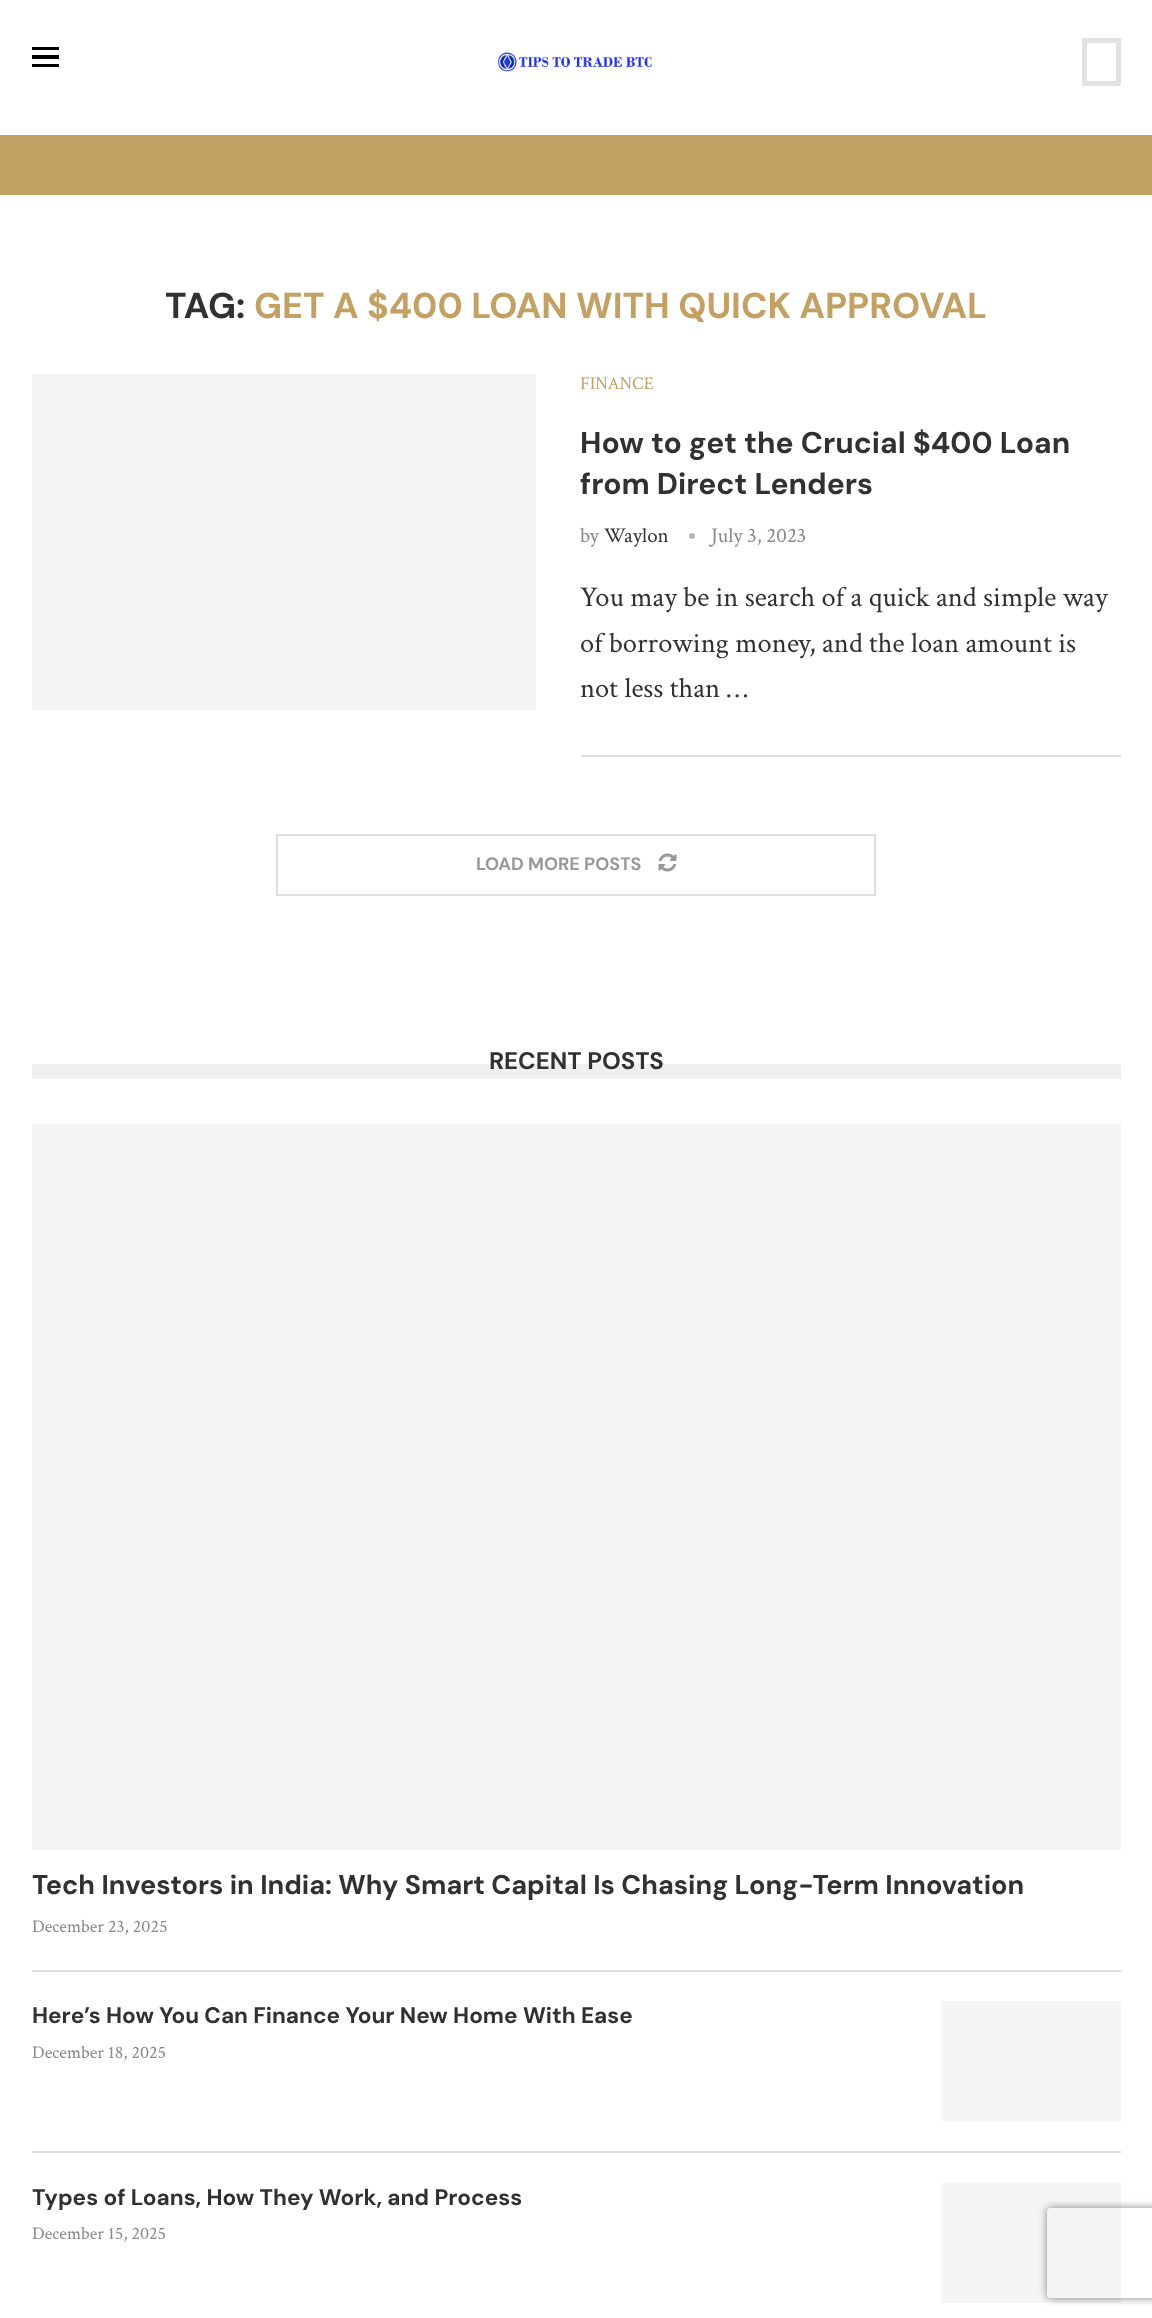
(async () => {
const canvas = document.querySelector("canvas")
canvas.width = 1152
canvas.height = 2318
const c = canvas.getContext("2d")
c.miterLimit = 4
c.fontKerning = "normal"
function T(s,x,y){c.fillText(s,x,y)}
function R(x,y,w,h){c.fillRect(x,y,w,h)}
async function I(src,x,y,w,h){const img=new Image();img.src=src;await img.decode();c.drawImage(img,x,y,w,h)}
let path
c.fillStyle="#fff"
R(0,0,1152,2318)
c.fillStyle="#000"
R(32,47,27,3)
R(32,55,27,4)
R(32,64,27,3)
await I("1.png",498,52,154,20)
c.strokeStyle="#e2e2e2"
c.lineWidth=5
c.strokeRect(1084.5,40.5,34,43)
c.fillStyle="#c3a063"
R(0,135,1152,60)
c.font="bold 36px DM Sans"
c.fillStyle="#313131"
T("TAG:",165,318)
c.fillStyle="#c3a063"
T("GET A $400 LOAN WITH QUICK APPROVAL",254,318)
c.fillStyle="#f5f5f5"
R(32,374,504,336)
c.font="18px Crimson Text"
c.fillStyle="#c3a063"
T("FINANCE",580,389)
c.font="bold 30px DM Sans"
c.fillStyle="#313131"
T("How to get the Crucial $400 Loan",580,453)
T("from Direct Lenders",580,494)
c.font="21px Crimson Text"
c.fillStyle="#888"
T("by",580,542)
c.fillStyle="#313131"
T("Waylon",604,542)
c.fillStyle="#b8b8b8"
c.beginPath()
c.arc(692,536,3,0,7)
c.fill()
c.fillStyle="#888"
T("July 3, 2023",711,542)
c.font="28.5px Crimson Text"
c.fillStyle="#313131"
T("You may be in search of a quick and simple way",580,606)
T("of borrowing money, and the loan amount is",580,652)
T("not less than …",580,697)
c.fillStyle="#dedede"
R(581,755,540,2)
c.strokeStyle="#dedede"
c.lineWidth=2
c.strokeRect(277,835,598,60)
c.font="bold 18px DM Sans"
c.fillStyle="#999"
T("LOAD MORE POSTS",476,870)
await I("2.png",658,853,19,19)
c.fillStyle="#efefef"
R(32,1064,1089,15)
c.font="bold 24px DM Sans"
c.fillStyle="#313131"
T("RECENT POSTS",489,1069)
c.fillStyle="#dedede"
R(32,1970,1089,2)
c.fillStyle="#f5f5f5"
R(32,1124,1089,726)
c.font="bold 27px DM Sans"
c.fillStyle="#313131"
T("Tech Investors in India: Why Smart Capital Is Chasing Long-Term Innovation",32,1894)
c.font="18px Crimson Text"
c.fillStyle="#888"
T("December 23, 2025",32,1932)
c.fillStyle="#dedede"
R(32,2151,1089,2)
c.font="bold 22.5px DM Sans"
c.fillStyle="#313131"
T("Here’s How You Can Finance Your New Home With Ease",32,2023)
c.font="18px Crimson Text"
c.fillStyle="#888"
T("December 18, 2025",32,2058)
c.fillStyle="#f5f5f5"
R(941,2001,180,120)
c.font="bold 22.5px DM Sans"
c.fillStyle="#313131"
T("Types of Loans, How They Work, and Process",32,2205)
c.font="18px Crimson Text"
c.fillStyle="#888"
T("December 15, 2025",32,2239)
c.fillStyle="#f5f5f5"
R(941,2183,180,120)
c.save()
path = new Path2D("M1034 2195h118v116h-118zm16 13h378c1.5 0 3 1.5 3 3v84c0 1.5-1.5 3-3 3h-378c-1.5 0-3-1.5-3-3v-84c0-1.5 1.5-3 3-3z")
c.clip(path,"evenodd")
c.fillStyle="#808080"
c.filter="blur(4px)"
c.beginPath()
c.roundRect(1047,2208,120,90,3)
c.fill()
c.filter="none"
c.restore()
})()
